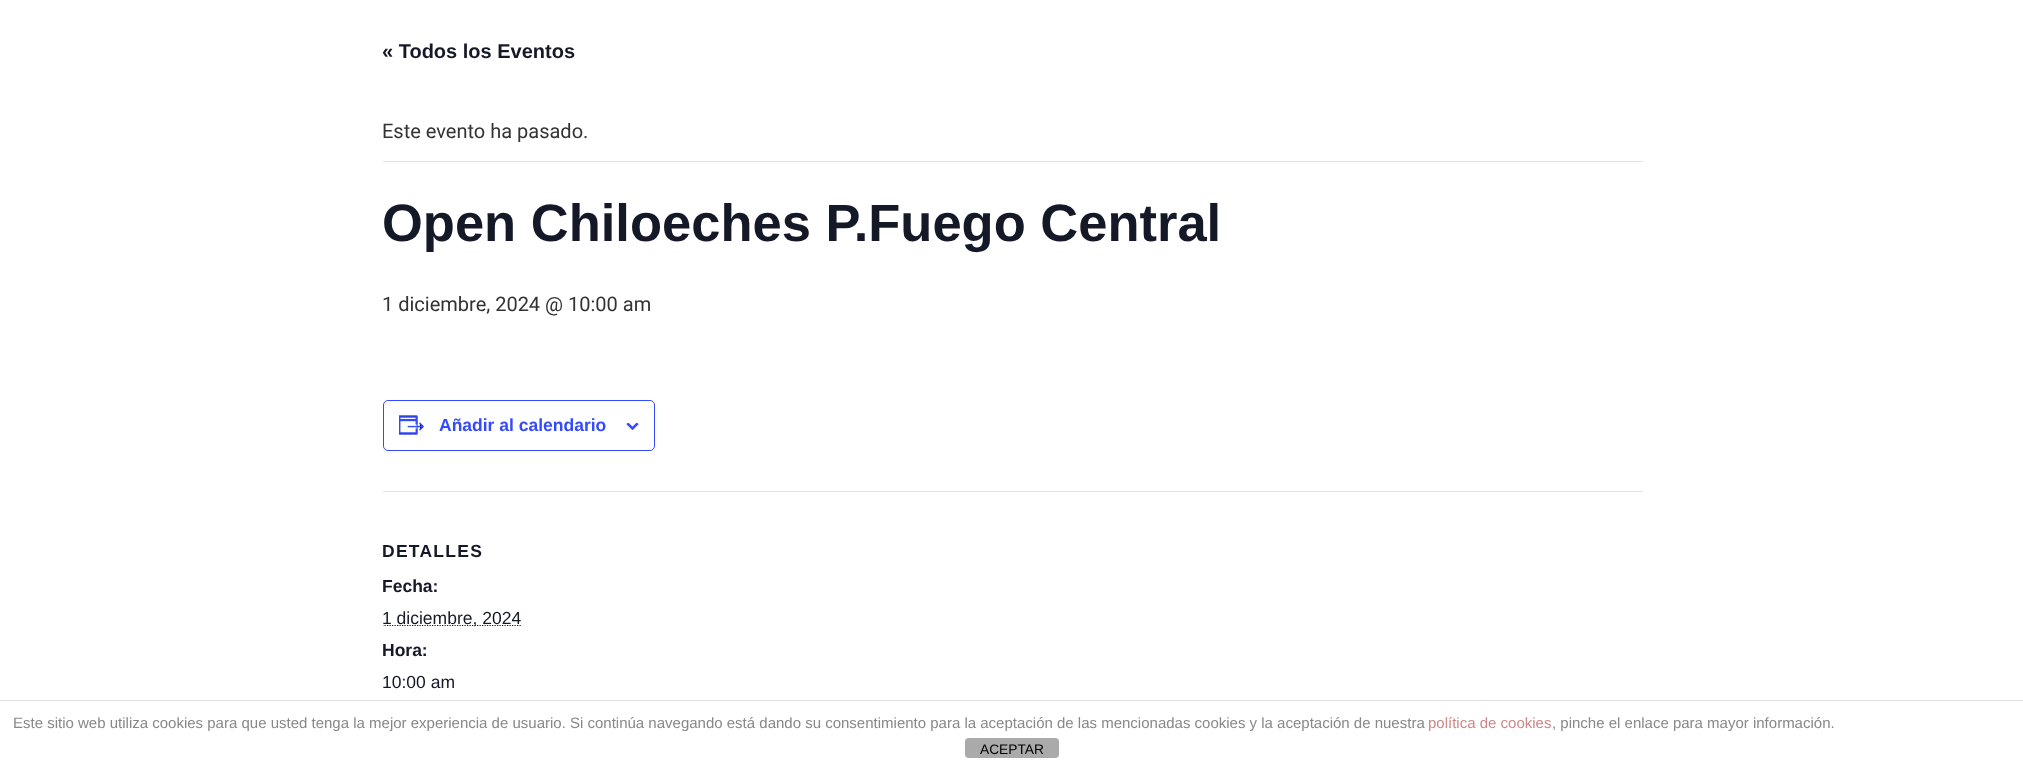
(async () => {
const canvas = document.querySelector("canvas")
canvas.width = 2023
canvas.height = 764
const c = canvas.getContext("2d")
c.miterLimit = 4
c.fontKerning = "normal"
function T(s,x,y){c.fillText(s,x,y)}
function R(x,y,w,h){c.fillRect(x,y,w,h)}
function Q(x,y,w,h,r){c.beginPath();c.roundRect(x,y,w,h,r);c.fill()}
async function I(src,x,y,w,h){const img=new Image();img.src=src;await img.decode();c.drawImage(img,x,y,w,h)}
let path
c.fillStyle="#fff"
R(0,0,2023,764)
c.font="bold 20px Liberation Sans"
c.fillStyle="#141827"
T("« Todos los Eventos",382,58)
c.fillStyle="#e4e4e4"
R(383,161,1260,1)
c.font="20px Roboto"
c.fillStyle="#333"
T("Este evento ha pasado.",382,138)
c.font="bold 52.5px Liberation Sans"
c.fillStyle="#141827"
T("Open Chiloeches P.Fuego Central",382,241)
c.font="20px Roboto"
c.fillStyle="#333"
T("1 diciembre, 2024 @ 10:00 am",382,311)
c.beginPath()
c.roundRect(383.5,400.5,271,50,4.5)
c.strokeStyle="#334aff"
c.stroke()
await I("1.png",399,415,25,20)
c.font="bold 17.5px Liberation Sans"
c.fillStyle="#334aff"
T("Añadir al calendario",439,431)
await I("2.png",626,423,13,7)
c.fillStyle="#e4e4e4"
R(383,491,1260,1)
c.letterSpacing="1.25px"
c.fillStyle="#141827"
T("DETALLES",382,557)
c.letterSpacing="0px"
T("Fecha:",382,592)
c.save()
c.beginPath()
c.rect(383,360,1260,361)
c.clip()
path = new Path2D("M382 625.5h139")
c.strokeStyle="#141827"
c.lineWidth=1.2
c.setLineDash([1.25,1.25])
c.stroke(path)
c.restore()
c.font="17.5px Liberation Sans"
T("1 diciembre, 2024",382,624)
c.font="bold 17.5px Liberation Sans"
T("Hora:",382,656)
c.font="17.5px Liberation Sans"
T("10:00 am",382,688)
c.fillStyle="#ddd"
R(0,700,2023,1)
c.font="15px Liberation Sans"
c.fillStyle="#888"
T("Este sitio web utiliza cookies para que usted tenga la mejor experiencia de usuario. Si continúa navegando está dando su consentimiento para la aceptación de las mencionadas cookies y la aceptación de nuestra",13,728)
c.fillStyle="#c88"
T("política de cookies",1428,728)
c.fillStyle="#888"
T(", pinche el enlace para mayor información.",1552,728)
c.fillStyle="#aaa"
Q(965,738,94,20,4)
c.font="13.75px Liberation Sans"
c.fillStyle="#000"
T("ACEPTAR",980,754)
})()
